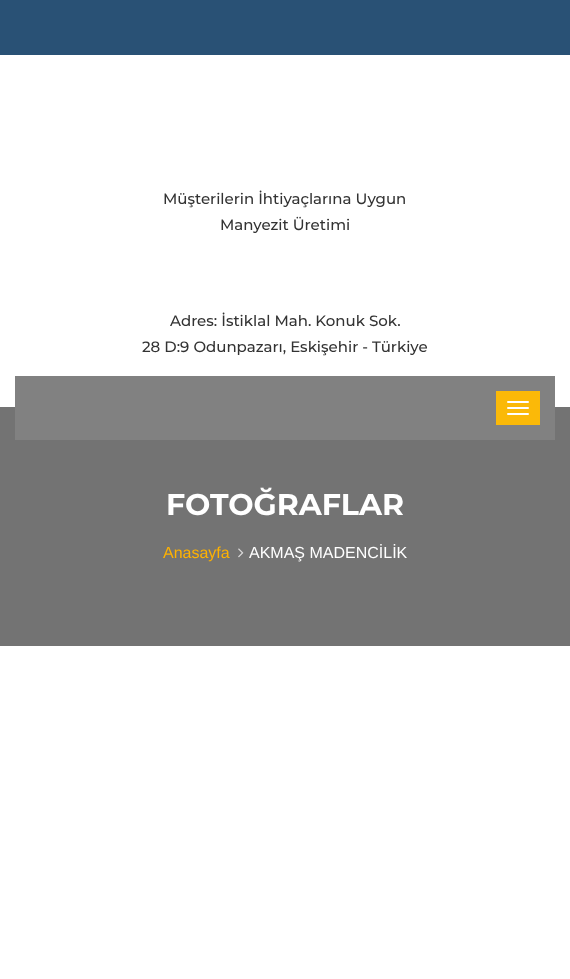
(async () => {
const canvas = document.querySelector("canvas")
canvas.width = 570
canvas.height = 979
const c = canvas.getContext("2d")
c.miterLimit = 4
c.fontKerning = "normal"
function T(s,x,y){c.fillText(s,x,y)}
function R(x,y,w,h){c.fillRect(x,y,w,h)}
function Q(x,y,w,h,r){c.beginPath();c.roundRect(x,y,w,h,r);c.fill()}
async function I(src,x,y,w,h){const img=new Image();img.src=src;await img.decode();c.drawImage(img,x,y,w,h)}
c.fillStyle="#fff"
R(0,0,570,979)
c.fillStyle="#295175"
R(0,0,570,55)
c.font="500 15px Montserrat"
c.fillStyle="#333"
T("Müşterilerin İhtiyaçlarına Uygun",163,204)
T("Manyezit Üretimi",220,230)
T("Adres: İstiklal Mah. Konuk Sok.",170,326)
T("28 D:9 Odunpazarı, Eskişehir - Türkiye",142,352)
c.fillStyle="#737373"
R(0,407,570,239)
c.fillStyle="#818181"
R(15,376,540,64)
c.fillStyle="#fbb908"
R(496,391,44,34)
c.fillStyle="#fff"
Q(507,401,22,2,1)
Q(507,407,22,2,1)
Q(507,413,22,2,1)
c.font="bold 30px Montserrat"
T("FOTOĞRAFLAR",166,515)
c.font="16px Arimo"
c.fillStyle="#ffb200"
T("Anasayfa",163,558)
await I("1.png",238,548,6,10)
c.fillStyle="#fff"
T("AKMAŞ MADENCİLİK",249,558)
})()
